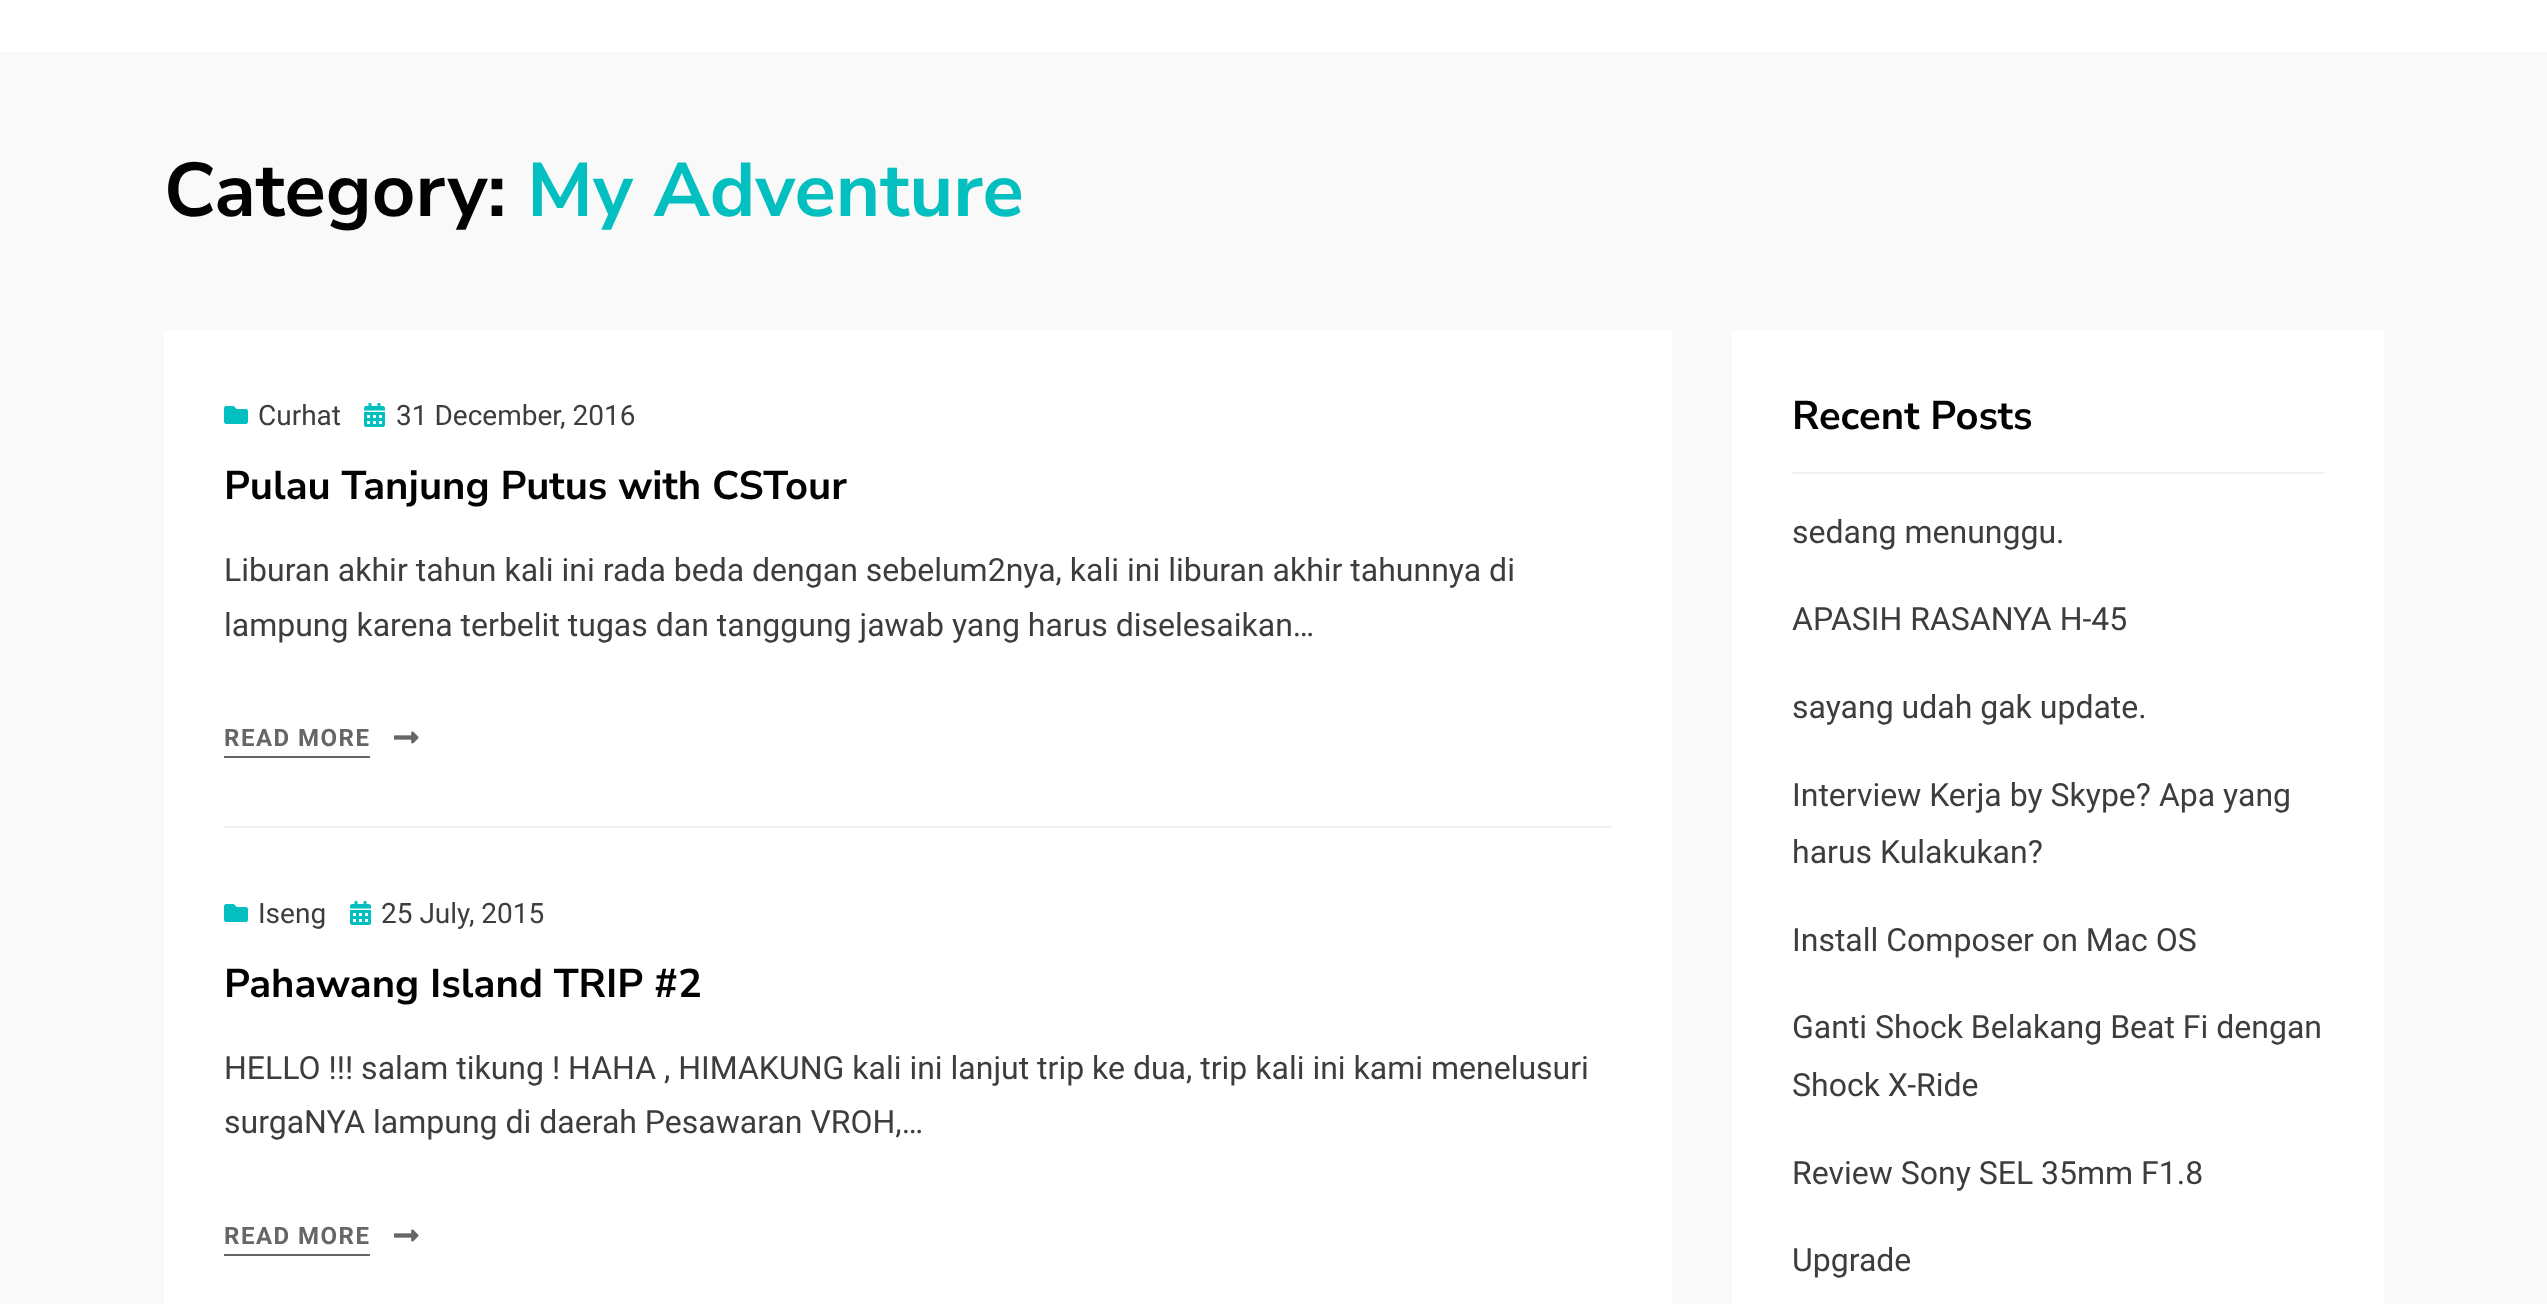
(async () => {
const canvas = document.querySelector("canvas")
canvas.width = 2547
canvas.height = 1304
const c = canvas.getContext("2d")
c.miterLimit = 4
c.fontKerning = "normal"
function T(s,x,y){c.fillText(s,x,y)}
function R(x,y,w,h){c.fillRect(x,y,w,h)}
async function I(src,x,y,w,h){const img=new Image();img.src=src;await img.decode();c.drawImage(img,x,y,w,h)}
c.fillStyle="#f9f9f9"
R(0,0,2547,1304)
c.fillStyle="#fff"
R(0,0,2547,52)
c.font="bold 76px Nunito Sans"
c.fillStyle="#020202"
T("Category:",164,216)
c.fillStyle="#04bfbf"
T("My Adventure",527,216)
c.fillStyle="#fff"
R(164,330,1508,974)
await I("1.png",224,406,24,18)
c.font="28px Roboto"
c.fillStyle="#3d3d3d"
T("Curhat",258,425)
await I("2.png",364,403,21,24)
T("31 December, 2016",396,425)
c.font="bold 40px Nunito Sans"
c.fillStyle="#020202"
T("Pulau Tanjung Putus with CSTour",224,499)
c.font="32px Roboto"
c.fillStyle="#3d3d3d"
T("Liburan akhir tahun kali ini rada beda dengan sebelum2nya, kali ini liburan akhir tahunnya di",224,581)
T("lampung karena terbelit tugas dan tanggung jawab yang harus diselesaikan…",224,636)
c.letterSpacing="1.5px"
c.font="bold 24px Roboto"
c.fillStyle="#666"
T("READ MORE",224,746)
await I("3.png",394,731,25,13)
R(224,756,146,2)
c.fillStyle="#f0f0f0"
R(224,826,1388,2)
await I("1.png",224,904,24,18)
c.letterSpacing="0px"
c.font="28px Roboto"
c.fillStyle="#3d3d3d"
T("Iseng",258,923)
await I("2.png",350,901,21,24)
T("25 July, 2015",381,923)
c.font="bold 40px Nunito Sans"
c.fillStyle="#020202"
T("Pahawang Island TRIP #2",224,997)
c.font="32px Roboto"
c.fillStyle="#3d3d3d"
T("HELLO !!! salam tikung ! HAHA , HIMAKUNG kali ini lanjut trip ke dua, trip kali ini kami menelusuri",224,1079)
T("surgaNYA lampung di daerah Pesawaran VROH,…",224,1133)
c.letterSpacing="1.5px"
c.font="bold 24px Roboto"
c.fillStyle="#666"
T("READ MORE",224,1244)
await I("3.png",394,1229,25,13)
R(224,1254,146,2)
c.fillStyle="#fff"
R(1732,330,652,974)
c.fillStyle="#f0f0f0"
R(1792,472,532,2)
c.letterSpacing="0px"
c.font="bold 40px Nunito Sans"
c.fillStyle="#020202"
T("Recent Posts",1792,429)
c.font="32px Roboto"
c.fillStyle="#3d3d3d"
T("sedang menunggu.",1792,543)
T("APASIH RASANYA H-45",1792,630)
T("sayang udah gak update.",1792,718)
T("Interview Kerja by Skype? Apa yang",1792,806)
T("harus Kulakukan?",1792,863)
T("Install Composer on Mac OS",1792,951)
T("Ganti Shock Belakang Beat Fi dengan",1792,1038)
T("Shock X-Ride",1792,1096)
T("Review Sony SEL 35mm F1.8",1792,1184)
T("Upgrade",1792,1271)
})()
